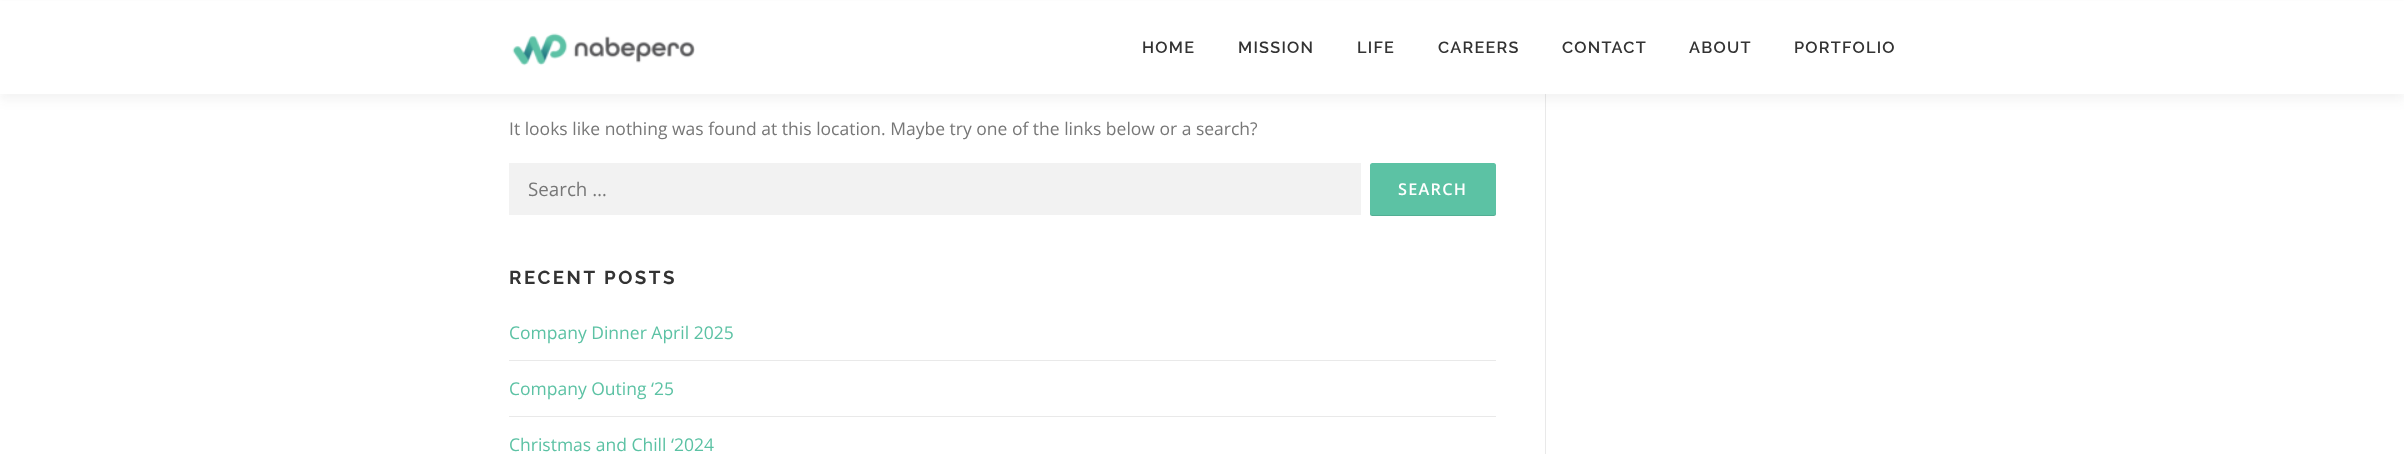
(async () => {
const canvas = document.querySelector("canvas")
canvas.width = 2404
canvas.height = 454
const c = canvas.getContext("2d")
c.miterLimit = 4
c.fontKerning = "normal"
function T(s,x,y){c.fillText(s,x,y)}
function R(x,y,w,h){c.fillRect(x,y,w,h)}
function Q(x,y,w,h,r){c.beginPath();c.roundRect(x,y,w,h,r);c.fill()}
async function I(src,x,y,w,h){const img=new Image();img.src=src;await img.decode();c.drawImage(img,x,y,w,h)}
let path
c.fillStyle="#fff"
R(0,0,2404,454)
c.fillStyle="#e9e9e9"
R(1545,94,1,360)
c.fillStyle="#3232320f"
c.filter="blur(6px)"
c.beginPath()
c.rect(0,6,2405,94)
c.fill()
c.filter="none"
c.fillStyle="#fff"
R(0,1,2404,93)
await I("1.png",512,33,183,33)
c.letterSpacing="1.25px"
c.font="600 16.25px Raleway"
c.fillStyle="#333"
T("HOME",1142,53)
T("MISSION",1238,53)
T("LIFE",1357,53)
T("CAREERS",1438,53)
T("CONTACT",1562,53)
T("ABOUT",1689,53)
T("PORTFOLIO",1794,53)
c.letterSpacing="0px"
c.font="17.5px Open Sans"
c.fillStyle="#777"
T("It looks like nothing was found at this location. Maybe try one of the links below or a search?",509,135)
c.fillStyle="#f2f2f2"
R(509,163,852,52)
c.font="18.75px Open Sans"
c.fillStyle="#777"
T("Search …",528,196)
c.fillStyle="#5cc2a4"
Q(1370,163,126,53,2.5)
c.fillStyle="#0000001a"
path = new Path2D("M1370 212v2c0 1 1 2 2 2h122c1 0 2-1 2-2v-2c0 2-1 3-2 3h-122c-1 0-2-1-2-3z")
c.fill(path)
c.letterSpacing="1.25px"
c.font="600 16.25px Open Sans"
c.fillStyle="#fff"
T("SEARCH",1398,195)
c.letterSpacing="2.5px"
c.font="bold 18.75px Raleway"
c.fillStyle="#333"
T("RECENT POSTS",509,284)
c.fillStyle="#e9e9e9"
R(509,360,987,1)
c.letterSpacing="0px"
c.font="17.5px Open Sans"
c.fillStyle="#5cc2a4"
T("Company Dinner April 2025",509,339)
c.fillStyle="#e9e9e9"
R(509,416,987,1)
c.fillStyle="#5cc2a4"
T("Company Outing ‘25",509,395)
T("Christmas and Chill ‘2024",509,451)
})()
